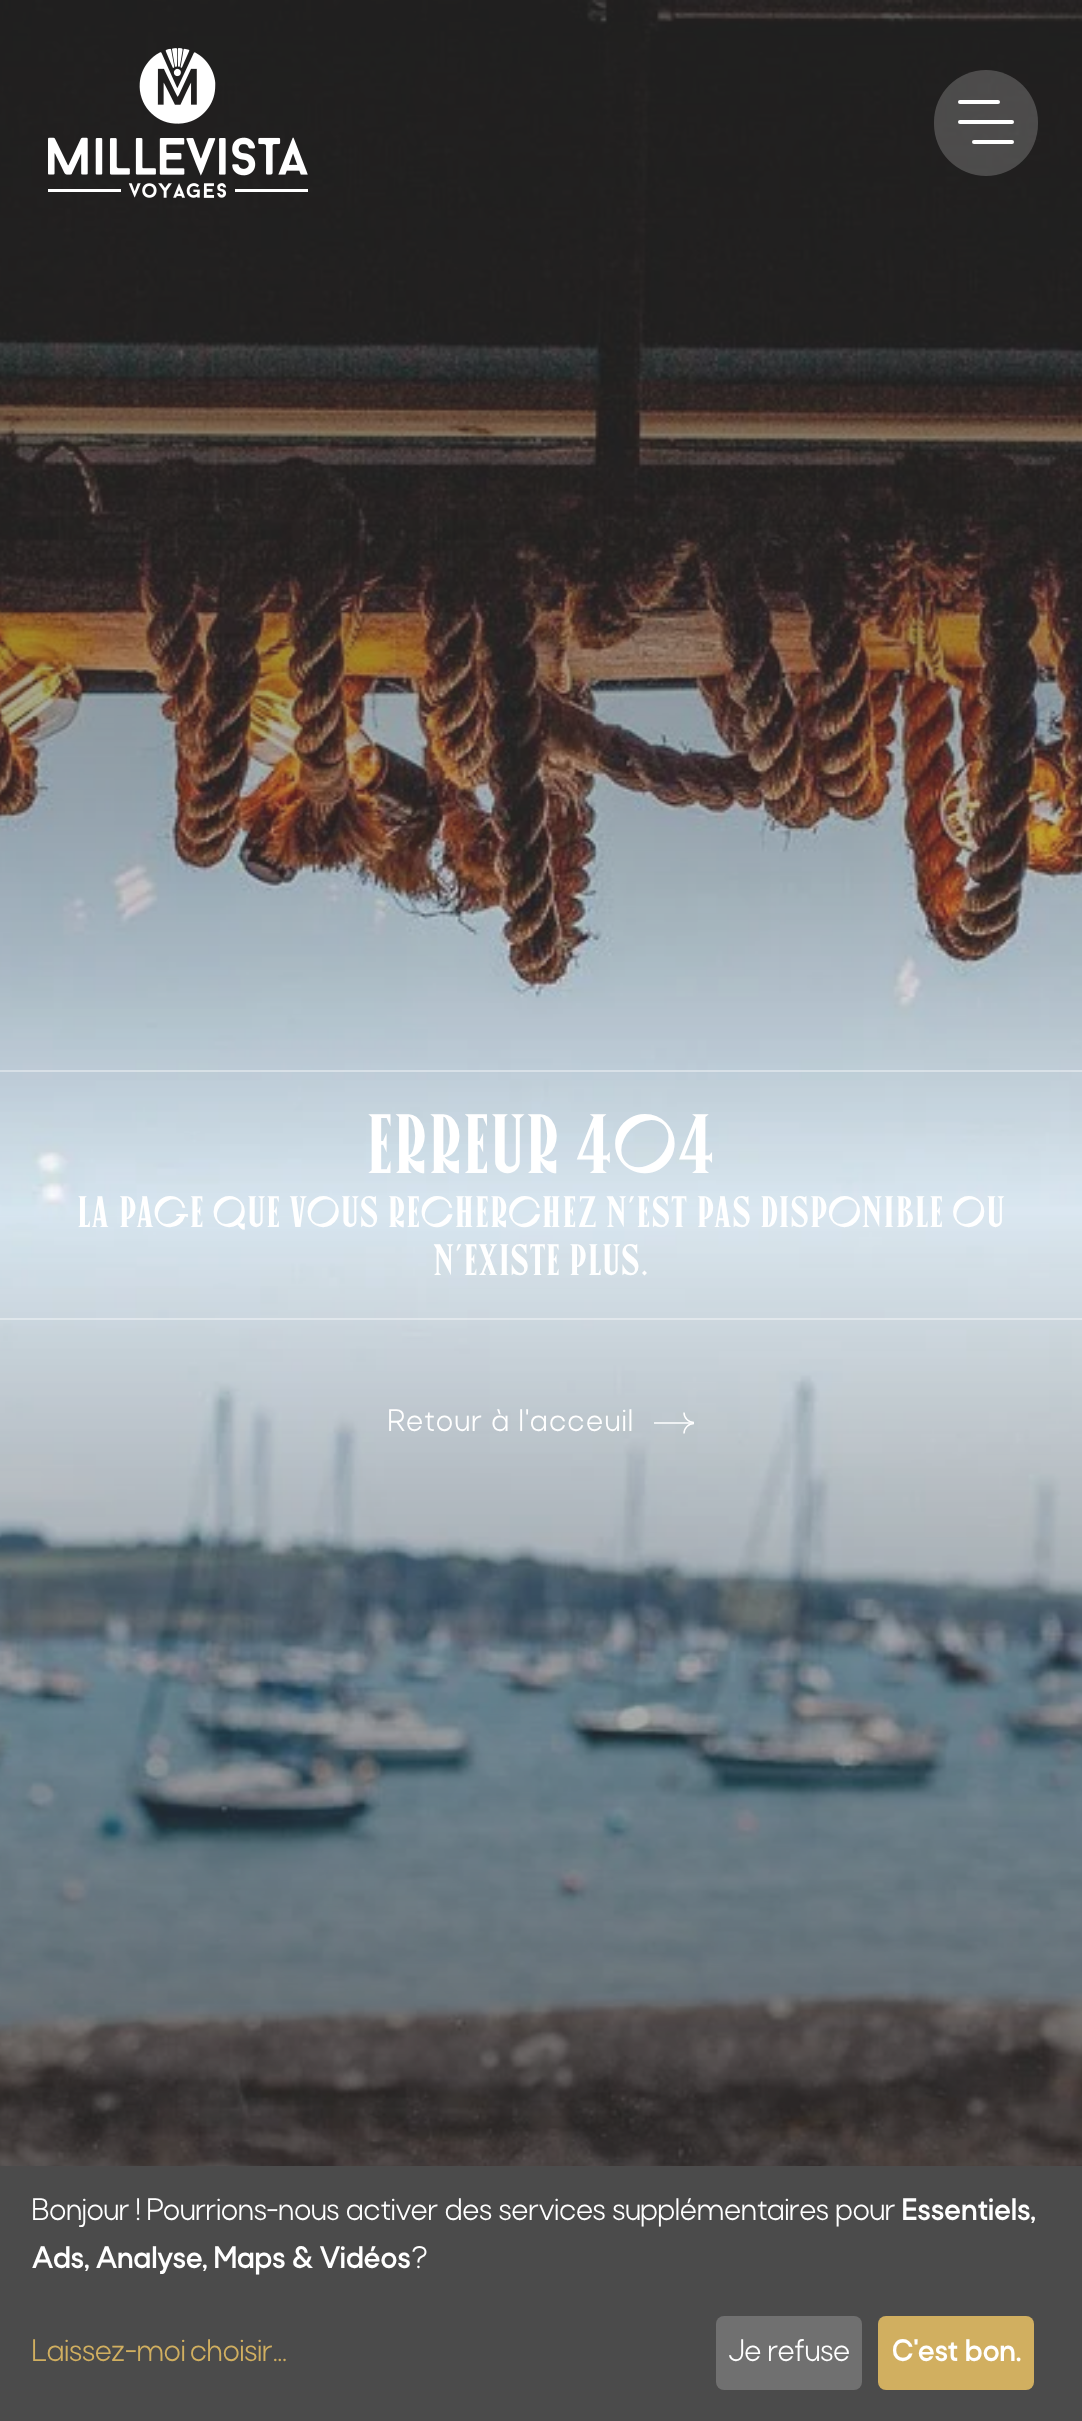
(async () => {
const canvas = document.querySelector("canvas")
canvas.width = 1082
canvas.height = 2421
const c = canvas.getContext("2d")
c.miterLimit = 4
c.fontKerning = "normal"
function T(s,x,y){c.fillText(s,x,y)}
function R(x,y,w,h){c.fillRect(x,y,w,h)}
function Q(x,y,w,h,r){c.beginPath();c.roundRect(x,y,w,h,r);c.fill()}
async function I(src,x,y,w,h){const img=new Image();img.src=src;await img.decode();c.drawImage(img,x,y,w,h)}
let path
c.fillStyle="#fff"
R(0,0,1082,2421)
await I("2.png",0,0,1082,2166)
await I("1.png",48,48,260,150)
Q(958,100,42,4,2)
Q(958,120,56,4,2)
Q(972,140,42,4,2)
c.fillStyle="#ffffff33"
Q(934,70,104,106,52)
c.fillStyle="#ffffff66"
R(0,1070,1082,2)
c.letterSpacing="1px"
c.font="84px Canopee"
c.fillStyle="#fff"
T("ERREUR 404",366,1173)
c.font="44px Canopee"
T("LA PAGE QUE VOUS RECHERCHEZ N'EST PAS DISPONIBLE OU",77,1227)
T("N'EXISTE PLUS.",433,1275)
c.fillStyle="#ffffff66"
R(0,1318,1082,2)
c.letterSpacing="1.6px"
c.font="32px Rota"
c.fillStyle="#fff"
T("Retour à l'acceuil",388,1431)
c.fillStyle="#eef1f3"
R(654,1422,40,2)
path = new Path2D("M694 1422.5c-5.5 0-10-4.5-10-10m0 21c0-5.5 4.5-10 10-10")
c.strokeStyle="#fff"
c.lineWidth=1.5
c.stroke(path)
c.fillStyle="#4b4b4b"
R(0,2166,1082,255)
c.letterSpacing="0px"
c.fillStyle="#fff"
T("Bonjour ! Pourrions-nous activer des services supplémentaires pour",32,2220)
c.font="bold 32px Rota"
T("Essentiels,",902,2220)
T("Ads, Analyse, Maps & Vidéos",32,2268)
c.font="32px Rota"
T("?",411,2268)
c.wordSpacing="-2px"
c.fillStyle="#d1af60"
T("Laissez-moi choisir",32,2361)
c.wordSpacing="0px"
T("...",273,2361)
c.fillStyle="#707070"
Q(716,2316,146,74,8)
c.fillStyle="#fff"
T("Je refuse",728,2361)
c.fillStyle="#d1af60"
Q(878,2316,156,74,8)
c.font="bold 32px Rota"
c.fillStyle="#fff"
T("C'est bon.",892,2361)
})()
